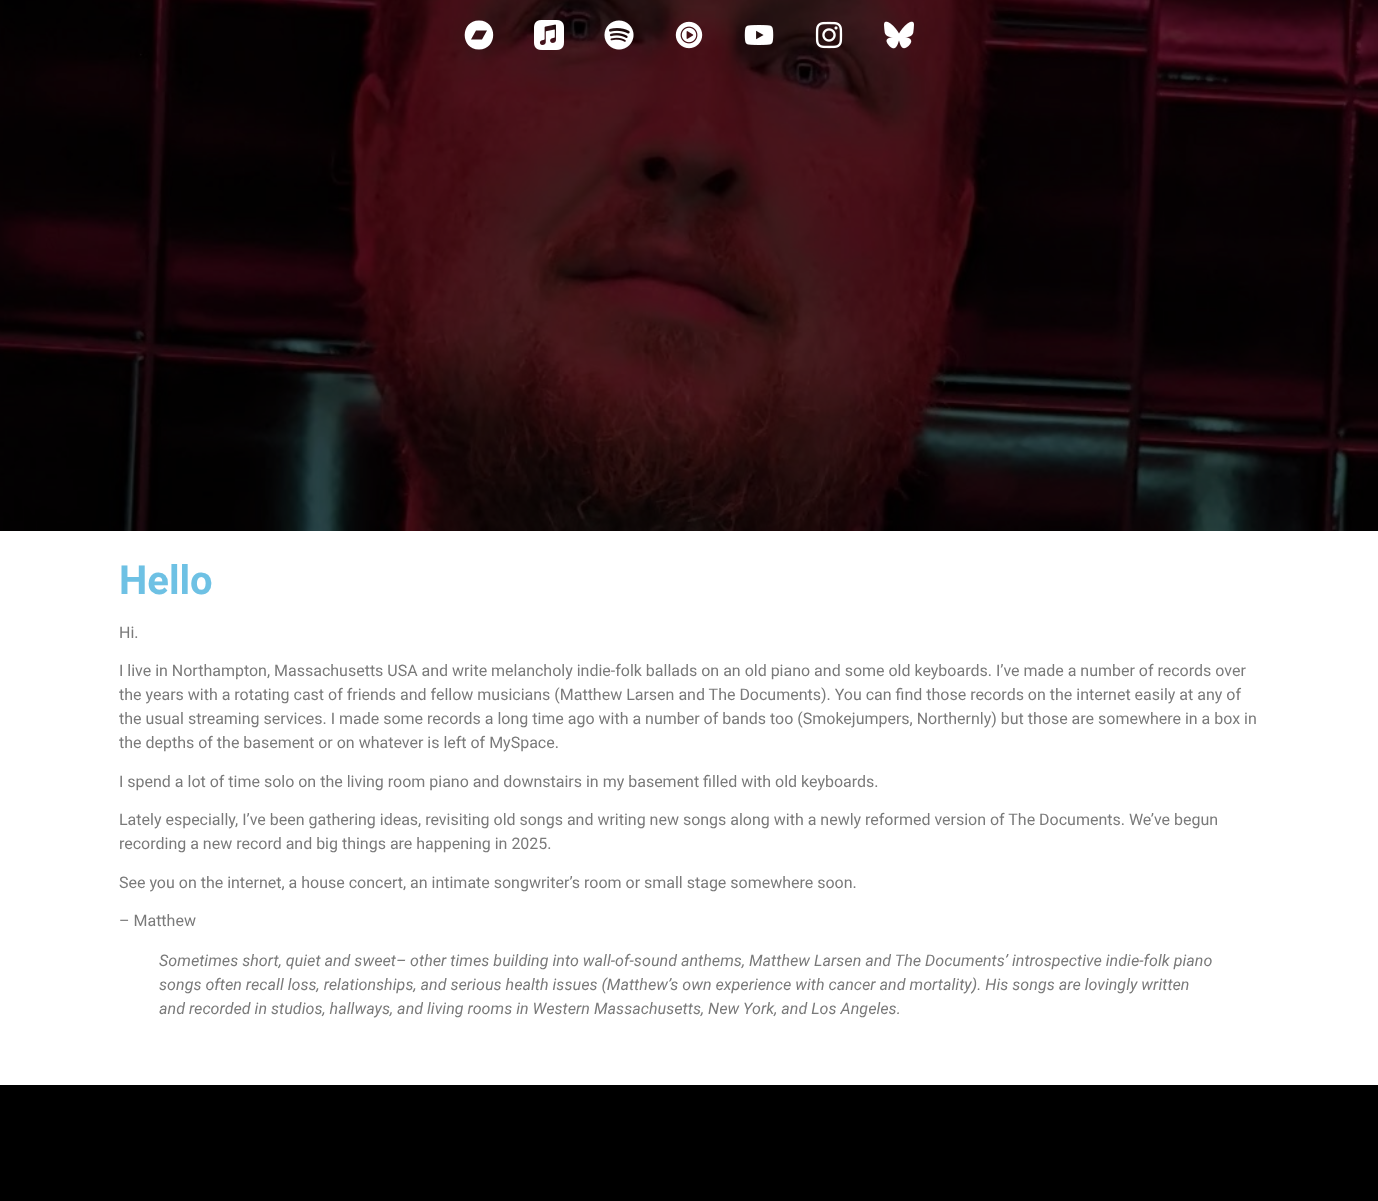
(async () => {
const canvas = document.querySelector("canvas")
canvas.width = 1378
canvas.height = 1201
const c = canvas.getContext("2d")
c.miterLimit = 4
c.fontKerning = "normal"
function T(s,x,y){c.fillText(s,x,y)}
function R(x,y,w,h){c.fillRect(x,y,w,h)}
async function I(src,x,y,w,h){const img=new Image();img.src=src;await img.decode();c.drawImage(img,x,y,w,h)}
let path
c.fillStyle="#fff"
R(0,0,1378,1201)
await I("1.png",0,0,1378,531)
path = new Path2D("M479 20.5c-19 0-19 29 0 29c19 0 19-29 0-29zm3 19h-11l5-9h11z")
c.fill(path)
await I("2.png",534,20,30,30)
await I("3.png",604,20,30,30)
await I("4.png",675,21,28,28)
await I("5.png",744,25,30,20)
await I("6.png",815,21,28,28)
await I("7.png",884,21,30,28)
c.font="bold 40px Roboto"
c.fillStyle="#6ec1e4"
T("Hello",119,594)
c.font="16px Roboto"
c.fillStyle="#7a7a7a"
T("Hi.",119,638)
T("I live in Northampton, Massachusetts USA and write melancholy indie-folk ballads on an old piano and some old keyboards. I’ve made a number of records over",119,676)
T("the years with a rotating cast of friends and fellow musicians (Matthew Larsen and The Documents). You can find those records on the internet easily at any of",119,700)
T("the usual streaming services. I made some records a long time ago with a number of bands too (Smokejumpers, Northernly) but those are somewhere in a box in",119,724)
T("the depths of the basement or on whatever is left of MySpace.",119,748)
T("I spend a lot of time solo on the living room piano and downstairs in my basement filled with old keyboards.",119,787)
T("Lately especially, I’ve been gathering ideas, revisiting old songs and writing new songs along with a newly reformed version of The Documents. We’ve begun",119,825)
T("recording a new record and big things are happening in 2025.",119,849)
T("See you on the internet, a house concert, an intimate songwriter’s room or small stage somewhere soon.",119,888)
T("– Matthew",119,926)
c.font="italic 16px Roboto"
T("Sometimes short, quiet and sweet– other times building into wall-of-sound anthems, Matthew Larsen and The Documents’ introspective indie-folk piano",159,966)
T("songs often recall loss, relationships, and serious health issues (Matthew’s own experience with cancer and mortality). His songs are lovingly written",159,990)
T("and recorded in studios, hallways, and living rooms in Western Massachusetts, New York, and Los Angeles.",159,1014)
c.fillStyle="#000"
R(0,1085,1378,116)
})()
